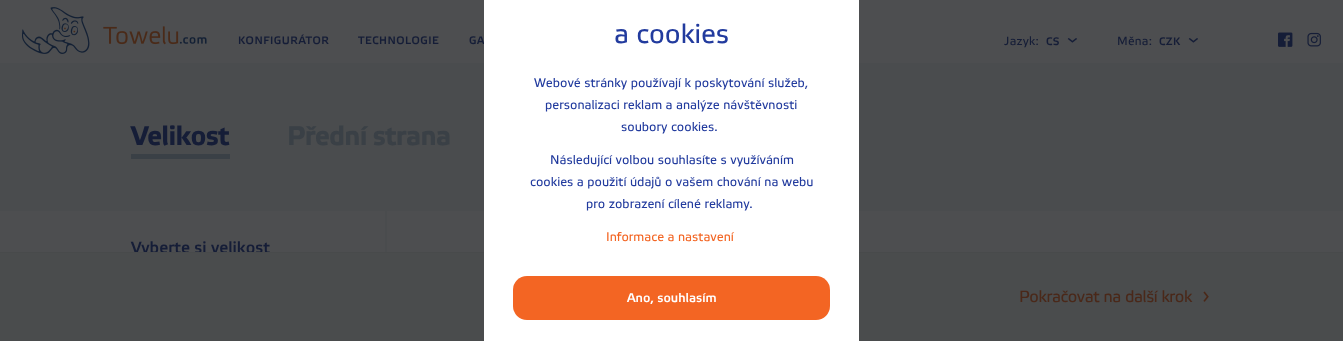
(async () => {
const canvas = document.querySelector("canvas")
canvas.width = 1343
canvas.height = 341
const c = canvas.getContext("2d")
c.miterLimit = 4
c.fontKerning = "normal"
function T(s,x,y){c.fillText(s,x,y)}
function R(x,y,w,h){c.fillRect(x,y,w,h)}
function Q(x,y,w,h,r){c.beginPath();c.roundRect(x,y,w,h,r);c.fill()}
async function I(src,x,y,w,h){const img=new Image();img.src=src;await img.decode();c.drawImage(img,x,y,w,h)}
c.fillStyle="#4d4e50"
R(0,0,1343,341)
c.letterSpacing="0.5px"
c.font="500 10.75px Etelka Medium"
c.fillStyle="#151d37"
T("GA",469,44)
c.fillStyle="#4a4c4e"
R(0,63,1343,148)
c.letterSpacing="0px"
c.font="500 16.25px Etelka Medium"
c.fillStyle="#151d37"
T("Vyberte si velikost",131,253)
c.fillStyle="#4a4c4d"
R(0,253,1343,88)
c.fillStyle="#484a4b"
R(0,252,1343,1)
c.fillStyle="#fff"
R(484,0,375,341)
c.font="27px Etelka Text"
c.fillStyle="#223b9e"
T("a cookies",614,43)
c.font="12.6px Etelka Text"
T("Webové stránky používají k poskytování služeb,",534,87)
T("personalizaci reklam a analýze návštěvnosti",545,109)
T("soubory cookies.",621,131)
T("Následující volbou souhlasíte s využíváním",550,164)
T("cookies a použití údajů o vašem chování na webu",530,186)
T("pro zobrazení cílené reklamy.",586,208)
c.fillStyle="#f36523"
T("Informace a nastavení",606,241)
Q(513,276,317,44,14)
c.font="500 12.6px Etelka Medium"
c.fillStyle="#fff"
T("Ano, souhlasím",627,302)
await I("2.png",64,26,115,19)
await I("1.png",22,7,185,47)
c.letterSpacing="0.5px"
c.font="500 10.75px Etelka Medium"
c.fillStyle="#151d37"
T("KONFIGURÁTOR",238,44)
T("TECHNOLOGIE",358,44)
c.letterSpacing="0.25px"
c.font="12px Etelka Text"
T("Jazyk:",1004,45)
c.letterSpacing="0.5px"
c.font="500 10.75px Etelka Medium"
T("CS",1046,45)
await I("3.png",1067,38,10,5)
c.letterSpacing="0.25px"
c.font="12px Etelka Text"
T("Měna:",1117,45)
c.letterSpacing="0.5px"
c.font="500 10.75px Etelka Medium"
T("CZK",1159,45)
await I("3.png",1188,38,10,5)
await I("4.png",1278,32,15,15)
await I("5.png",1307,32,14,15)
c.letterSpacing="-0.75px"
c.font="bold 27px Etelka Text"
T("Velikost",131,145)
c.fillStyle="#3a4046"
R(131,154,99,5)
T("Přední strana",287,145)
c.fillStyle="#4a4c4e"
R(385,211,2,41)
c.letterSpacing="-0.4px"
c.font="16.25px Etelka Text"
c.fillStyle="#4a2819"
T("Pokračovat na další krok",1019,302)
await I("6.png",1203,291,6,11)
})()
